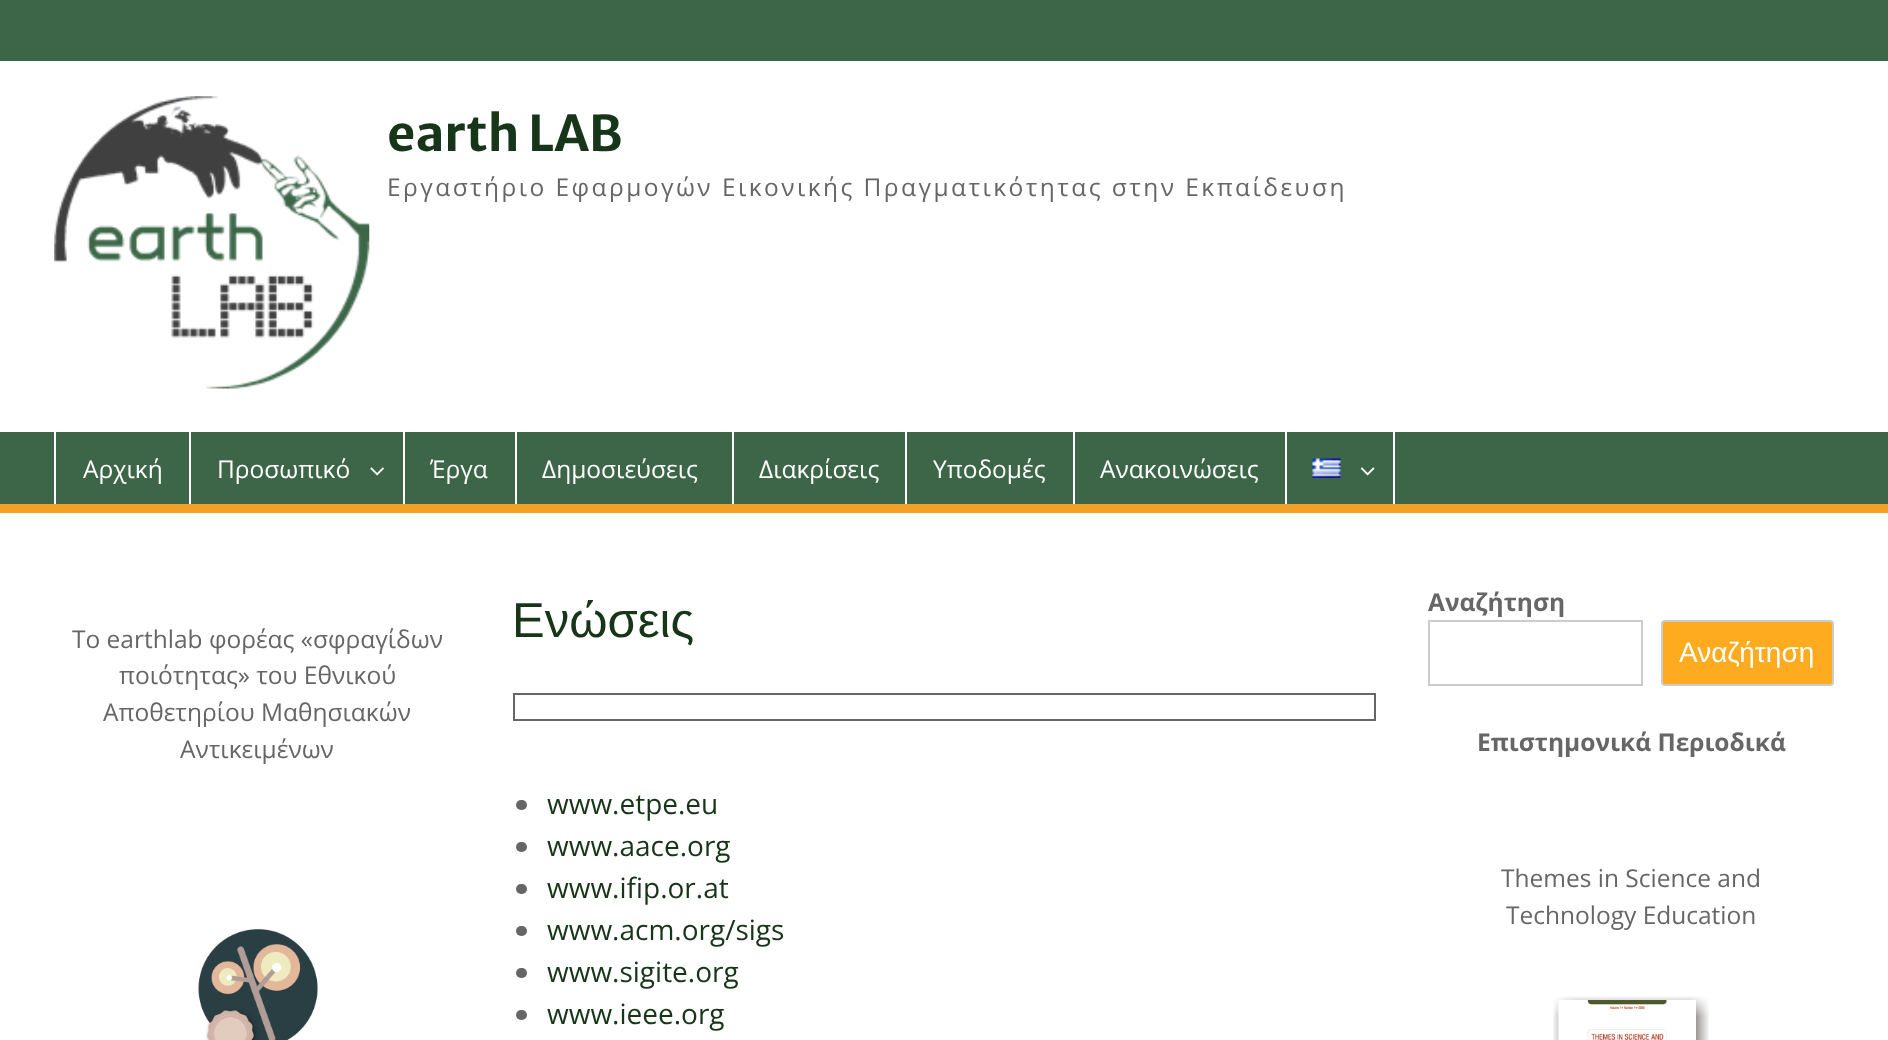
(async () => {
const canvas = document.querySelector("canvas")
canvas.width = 1888
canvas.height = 1040
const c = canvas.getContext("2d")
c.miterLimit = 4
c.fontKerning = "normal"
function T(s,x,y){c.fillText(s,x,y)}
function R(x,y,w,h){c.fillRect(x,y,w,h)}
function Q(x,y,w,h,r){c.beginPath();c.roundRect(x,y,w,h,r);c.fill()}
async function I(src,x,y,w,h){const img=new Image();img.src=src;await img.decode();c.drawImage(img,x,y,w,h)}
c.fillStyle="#fff"
R(0,0,1888,1040)
c.fillStyle="#3d6649"
R(0,0,1888,61)
await I("1.png",54,96,316,293)
c.font="bold 49px Merriweather Sans"
c.fillStyle="#173518"
T("earth LAB",387,151)
c.letterSpacing="2.45px"
c.font="24.5px Open Sans"
c.fillStyle="#666"
T("Εργαστήριο Εφαρμογών Εικονικής Πραγματικότητας στην Εκπαίδευση",387,196)
c.fillStyle="#3d6649"
R(0,432,1888,72)
c.fillStyle="#f4a024"
R(0,504,1888,9)
c.fillStyle="#fff"
R(189,432,2,72)
R(54,432,2,72)
c.letterSpacing="0px"
T("Αρχική",83,478)
R(403,432,2,72)
T("Προσωπικό",217,478)
await I("2.png",370,467,14,9)
R(515,432,2,72)
T("Έργα",430,478)
R(732,432,2,72)
T("Δημοσιεύσεις",542,478)
R(905,432,2,72)
T("Διακρίσεις",759,478)
R(1073,432,2,72)
T("Υποδομές",933,478)
R(1285,432,2,72)
T("Ανακοινώσεις",1100,478)
R(1393,432,2,72)
await I("3.png",1312,458,29,20)
await I("4.png",1360,467,15,9)
c.fillStyle="#666"
T("Το earthlab φορέας «σφραγίδων",72,648)
T("ποιότητας» του Εθνικού",119,684)
T("Αποθετηρίου Μαθησιακών",103,721)
T("Αντικειμένων",180,758)
await I("5.png",198,929,120,111)
c.font="49px Liberation Sans"
c.fillStyle="#173518"
T("Ενώσεις",512,637)
c.fillStyle="#666"
R(513,693,863,2)
R(1374,693,2,28)
R(513,719,863,2)
R(513,693,2,28)
Q(516,800,11,10,5)
c.font="28px Open Sans"
c.fillStyle="#173518"
T("www.etpe.eu",547,814)
c.fillStyle="#666"
Q(516,842,11,10,5)
c.fillStyle="#173518"
T("www.aace.org",547,856)
c.fillStyle="#666"
Q(516,884,11,10,5)
c.fillStyle="#173518"
T("www.ifip.or.at",547,898)
c.fillStyle="#666"
Q(516,926,11,10,5)
c.fillStyle="#173518"
T("www.acm.org/sigs",547,940)
c.fillStyle="#666"
Q(516,968,11,10,5)
c.fillStyle="#173518"
T("www.sigite.org",547,982)
c.fillStyle="#666"
Q(516,1010,11,10,5)
c.fillStyle="#173518"
T("www.ieee.org",547,1024)
c.font="bold 24.5px Open Sans"
c.fillStyle="#666"
T("Αναζήτηση",1428,611)
c.strokeStyle="#ccc"
c.lineWidth=2
c.strokeRect(1429,621,213,64)
c.fillStyle="#ffab1f"
c.beginPath()
c.roundRect(1662,621,171,64,3)
c.fill()
c.stroke()
c.font="28px Liberation Sans"
c.fillStyle="#fff"
T("Αναζήτηση",1679,662)
c.font="bold 24.5px Open Sans"
c.fillStyle="#666"
T("Επιστημονικά Περιοδικά",1477,751)
c.font="24.5px Open Sans"
T("Themes in Science and",1501,887)
T("Technology Education",1506,924)
await I("6.png",1553,996,156,44)
})()
